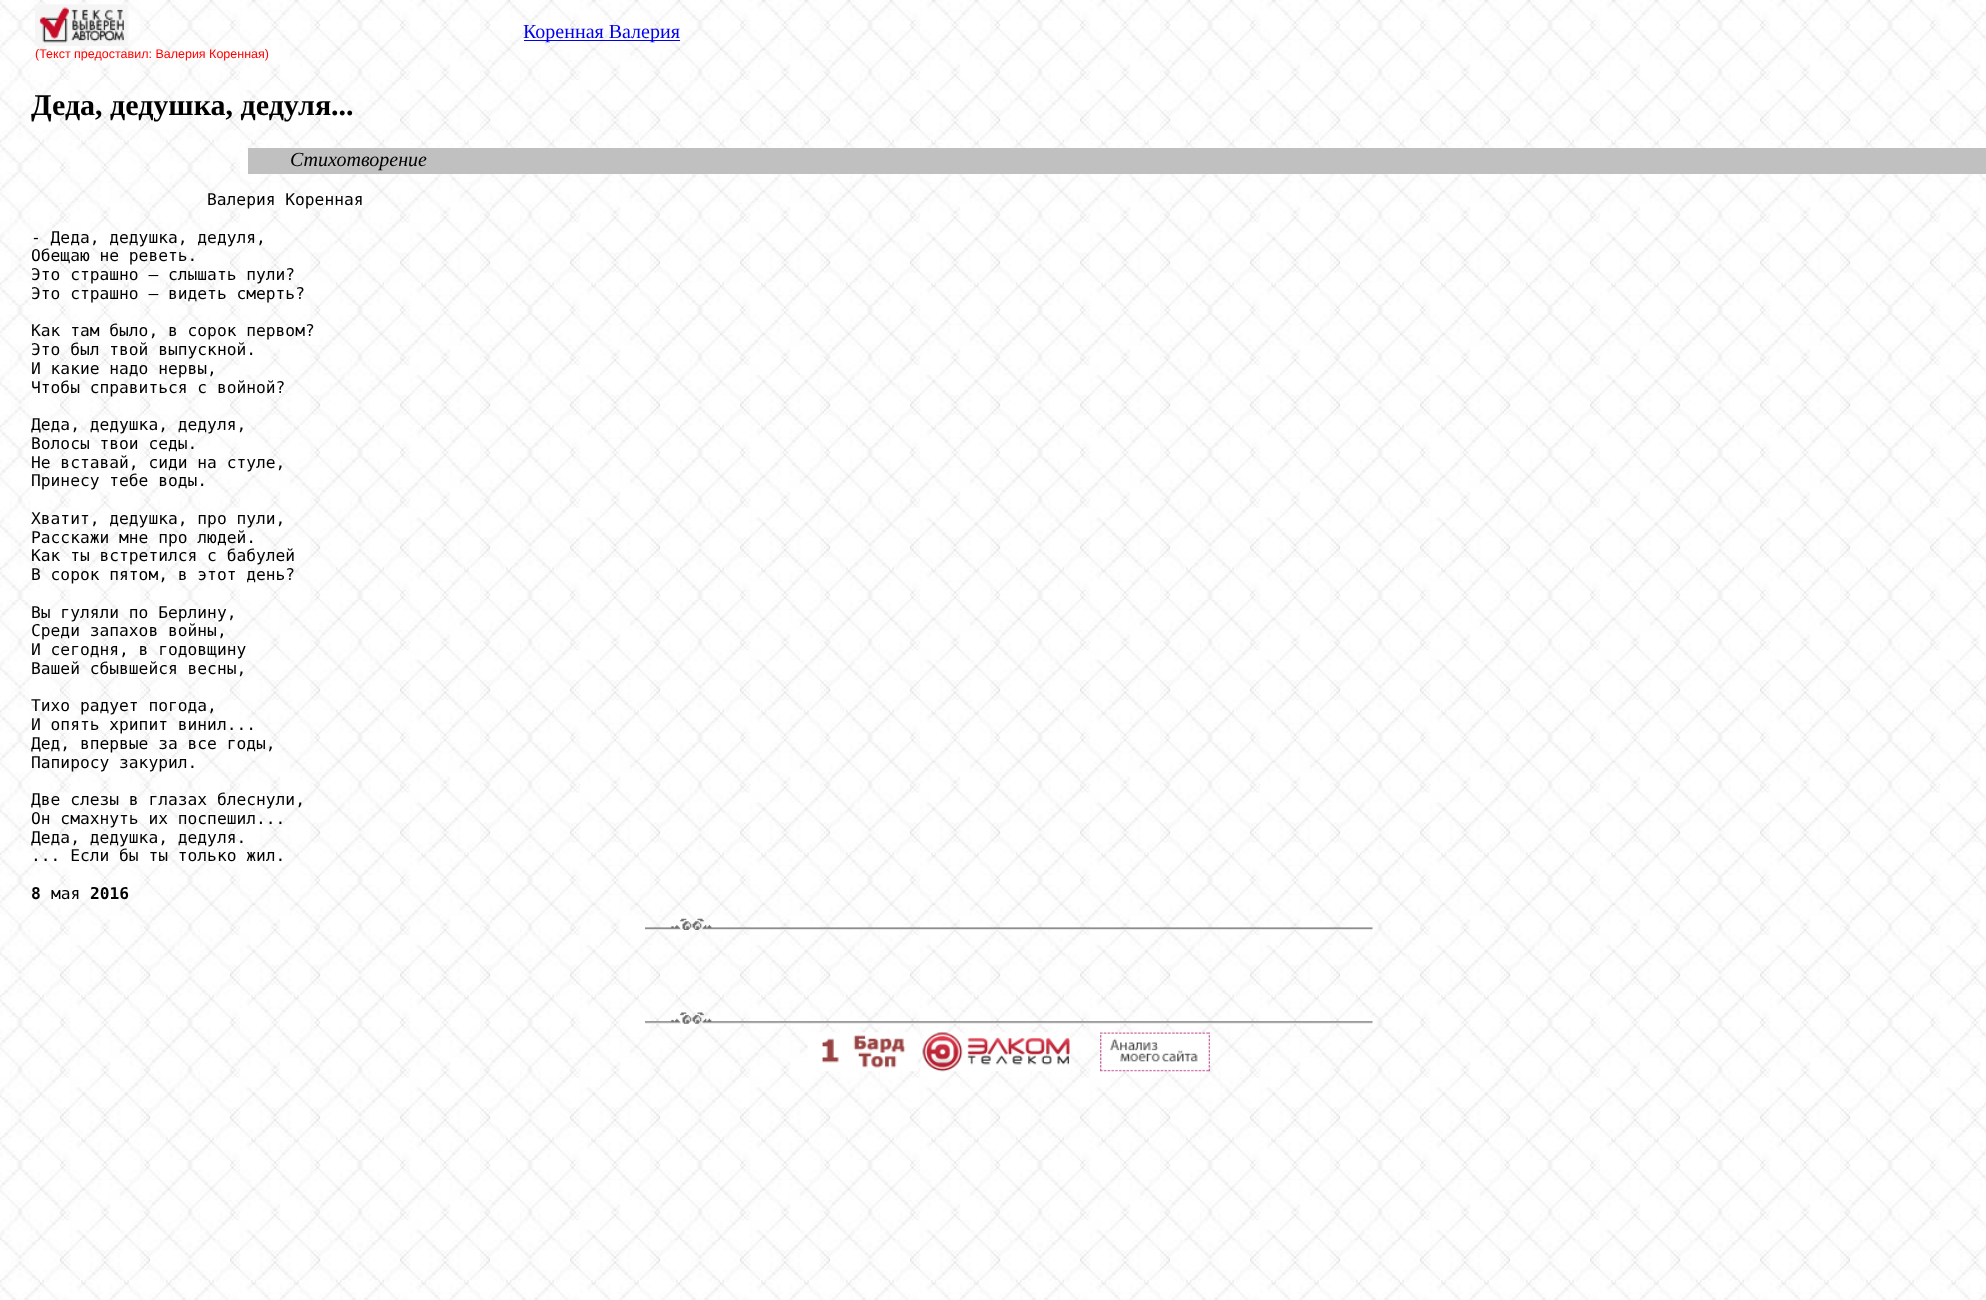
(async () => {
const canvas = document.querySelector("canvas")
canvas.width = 1986
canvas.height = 1300
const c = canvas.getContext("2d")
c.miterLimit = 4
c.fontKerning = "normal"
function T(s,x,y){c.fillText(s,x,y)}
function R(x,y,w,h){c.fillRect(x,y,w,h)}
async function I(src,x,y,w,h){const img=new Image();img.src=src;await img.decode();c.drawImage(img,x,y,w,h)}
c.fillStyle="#fff"
R(0,0,1986,1300)
await I("1.png",0,0,1986,1300)
c.fillStyle="#00e"
R(524,40,156,1)
c.font="20px Liberation Serif"
T("Коренная Валерия",523,38)
await I("2.png",35,4,94,42)
c.font="12.5px Liberation Sans"
c.fillStyle="#f00"
T("(Текст предоставил: Валерия Коренная)",35,58)
c.font="bold 30px Liberation Serif"
c.fillStyle="#000"
T("Деда, дедушка, дедуля...",31,115)
c.fillStyle="#c0c0c0"
R(248,148,1738,26)
c.font="italic 20px Liberation Serif"
c.fillStyle="#000"
T("Стихотворение",290,166)
c.font="16.25px DejaVu Sans Mono"
T("Валерия Коренная",207,205)
T("- Деда, дедушка, дедуля,",31,243)
T("Обещаю не реветь.",31,261)
T("Это страшно – слышать пули?",31,280)
T("Это страшно – видеть смерть?",31,299)
T("Как там было, в сорок первом?",31,336)
T("Это был твой выпускной.",31,355)
T("И какие надо нервы,",31,374)
T("Чтобы справиться с войной?",31,393)
T("Деда, дедушка, дедуля,",31,430)
T("Волосы твои седы.",31,449)
T("Не вставай, сиди на стуле,",31,468)
T("Принесу тебе воды.",31,486)
T("Хватит, дедушка, про пули,",31,524)
T("Расскажи мне про людей.",31,543)
T("Как ты встретился с бабулей",31,561)
T("В сорок пятом, в этот день?",31,580)
T("Вы гуляли по Берлину,",31,618)
T("Среди запахов войны,",31,636)
T("И сегодня, в годовщину",31,655)
T("Вашей сбывшейся весны,",31,674)
T("Тихо радует погода,",31,711)
T("И опять хрипит винил...",31,730)
T("Дед, впервые за все годы,",31,749)
T("Папиросу закурил.",31,768)
T("Две слезы в глазах блеснули,",31,805)
T("Он смахнуть их поспешил...",31,824)
T("Деда, дедушка, дедуля.",31,843)
T("... Если бы ты только жил.",31,861)
c.font="bold 16.25px DejaVu Sans Mono"
T("8",31,899)
c.font="16.25px DejaVu Sans Mono"
T("мая",51,899)
c.font="bold 16.25px DejaVu Sans Mono"
T("2016",90,899)
await I("3.png",645,918,728,12)
await I("4.png",645,1012,728,12)
await I("5.png",807,1032,111,40)
await I("6.png",922,1032,148,40)
await I("7.png",1100,1032,110,40)
})()
